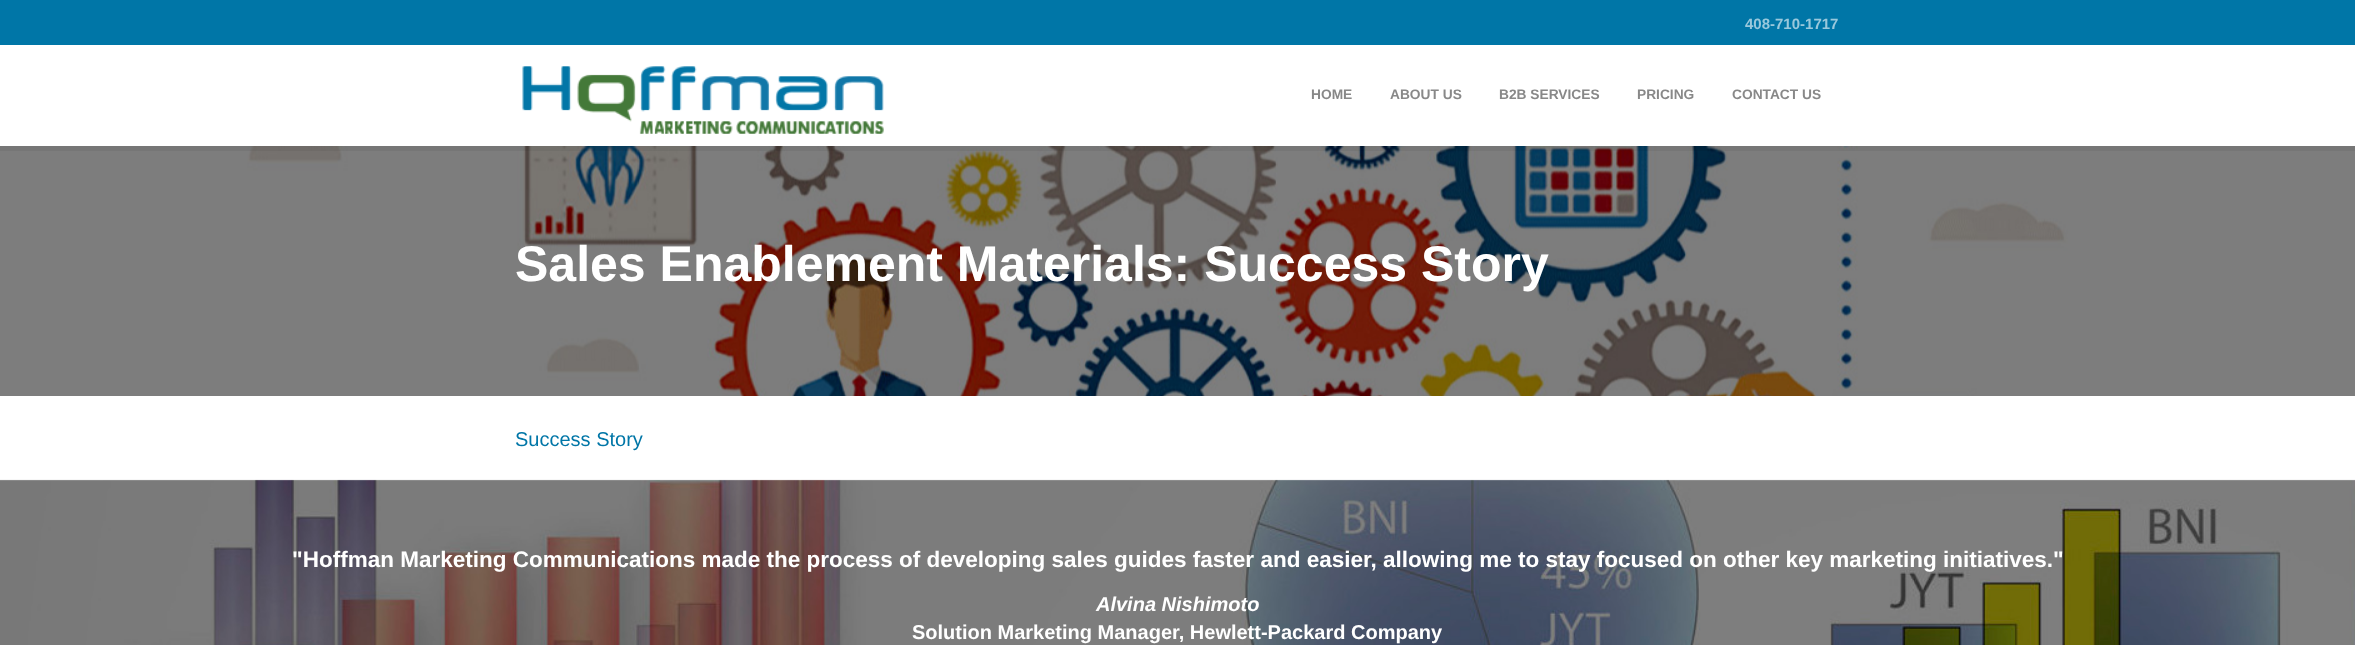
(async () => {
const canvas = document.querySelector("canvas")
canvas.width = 2355
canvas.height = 645
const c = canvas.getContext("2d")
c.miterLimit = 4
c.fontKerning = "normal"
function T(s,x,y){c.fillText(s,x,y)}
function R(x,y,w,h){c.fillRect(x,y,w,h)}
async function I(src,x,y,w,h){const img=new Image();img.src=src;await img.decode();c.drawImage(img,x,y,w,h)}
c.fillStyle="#fff"
R(0,0,2355,645)
c.fillStyle="#0076a7"
R(0,0,2355,45)
c.font="bold 15px Liberation Sans"
c.fillStyle="#99c8dc"
T("408-710-1717",1745,29)
await I("2.png",0,146,2355,250)
c.fillStyle="#0000000d"
R(0,146,2355,5)
await I("1.png",522,66,362,68)
c.font="bold 13.75px Liberation Sans"
c.fillStyle="#888"
T("HOME",1311,99)
T("ABOUT US",1390,99)
T("B2B SERVICES",1499,99)
T("PRICING",1637,99)
T("CONTACT US",1732,99)
c.font="bold 50px Liberation Sans"
c.fillStyle="#fff"
T("Sales Enablement Materials: Success Story",515,281)
c.font="20px Liberation Sans"
c.fillStyle="#0076a7"
T("Success Story",515,446)
await I("3.png",0,479,2355,166)
c.font="bold 22.5px Liberation Sans"
c.fillStyle="#fff"
T("\"Hoffman Marketing Communications made the process of developing sales guides faster and easier, allowing me to stay focused on other key marketing initiatives.\"",292,567)
c.font="italic bold 20px Liberation Sans"
T("Alvina Nishimoto",1096,611)
c.font="bold 20px Liberation Sans"
T("Solution Marketing Manager, Hewlett-Packard Company",912,639)
})()
